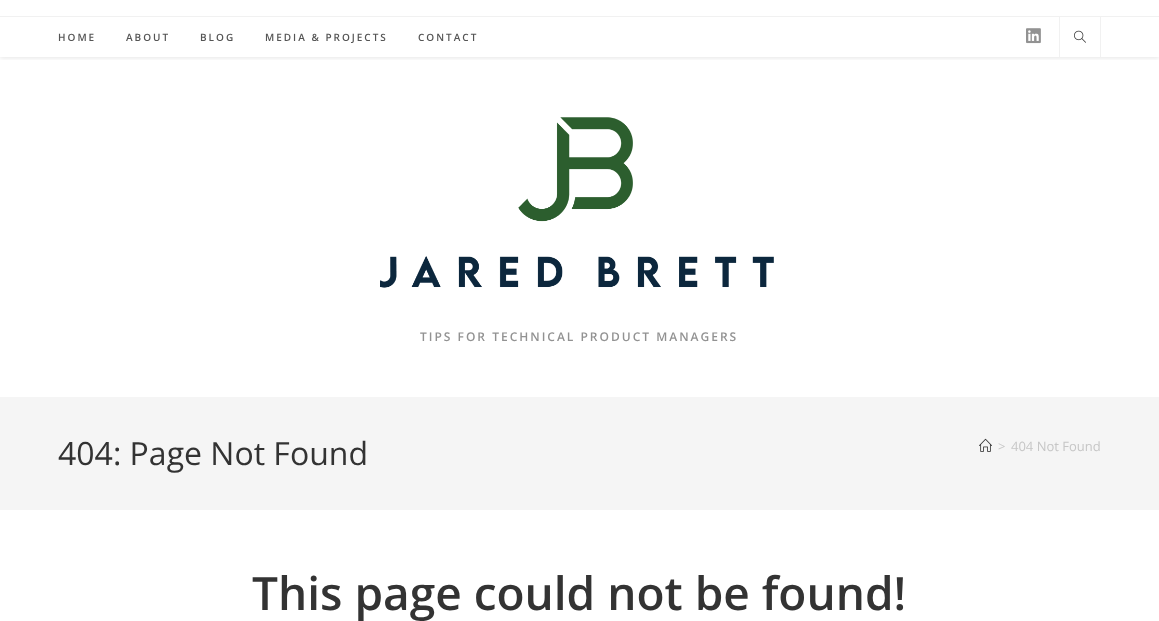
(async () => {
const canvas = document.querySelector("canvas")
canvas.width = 1159
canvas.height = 621
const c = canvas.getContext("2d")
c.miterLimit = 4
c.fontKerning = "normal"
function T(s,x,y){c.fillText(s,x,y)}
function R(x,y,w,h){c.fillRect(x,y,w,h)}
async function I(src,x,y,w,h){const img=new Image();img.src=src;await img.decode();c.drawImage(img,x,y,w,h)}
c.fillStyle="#fff"
R(0,0,1159,621)
c.save()
c.beginPath()
c.rect(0,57,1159,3)
c.clip()
c.fillStyle="#0000001a"
c.filter="blur(2.5px)"
c.beginPath()
c.rect(0,18,1159,40)
c.fill()
c.filter="none"
c.restore()
R(1,15,1157,1)
c.fillStyle="#f1f1f1"
R(0,16,1159,1)
c.letterSpacing="2px"
c.font="600 10px Open Sans"
c.fillStyle="#555"
T("HOME",58,41)
T("ABOUT",126,41)
T("BLOG",200,41)
T("MEDIA & PROJECTS",265,41)
T("CONTACT",418,41)
await I("1.png",1026,28,15,16)
c.fillStyle="#f1f1f1"
R(1100,17,1,40)
R(1059,17,1,40)
await I("2.png",1074,30,12,13)
await I("3.png",380,117,394,171)
c.font="600 12px Open Sans"
c.fillStyle="#929292"
T("TIPS FOR TECHNICAL PRODUCT MANAGERS",420,341)
c.fillStyle="#f5f5f5"
R(0,397,1159,113)
c.letterSpacing="0px"
c.font="32px Open Sans"
c.fillStyle="#333"
T("404: Page Not Found",58,465)
await I("4.png",979,438,13,14)
c.font="13px Open Sans"
c.fillStyle="#c6c6c6"
T(">",998,451)
T("404 Not Found",1011,451)
c.font="600 46px Open Sans"
c.fillStyle="#333"
T("This page could not be found!",252,610)
})()
